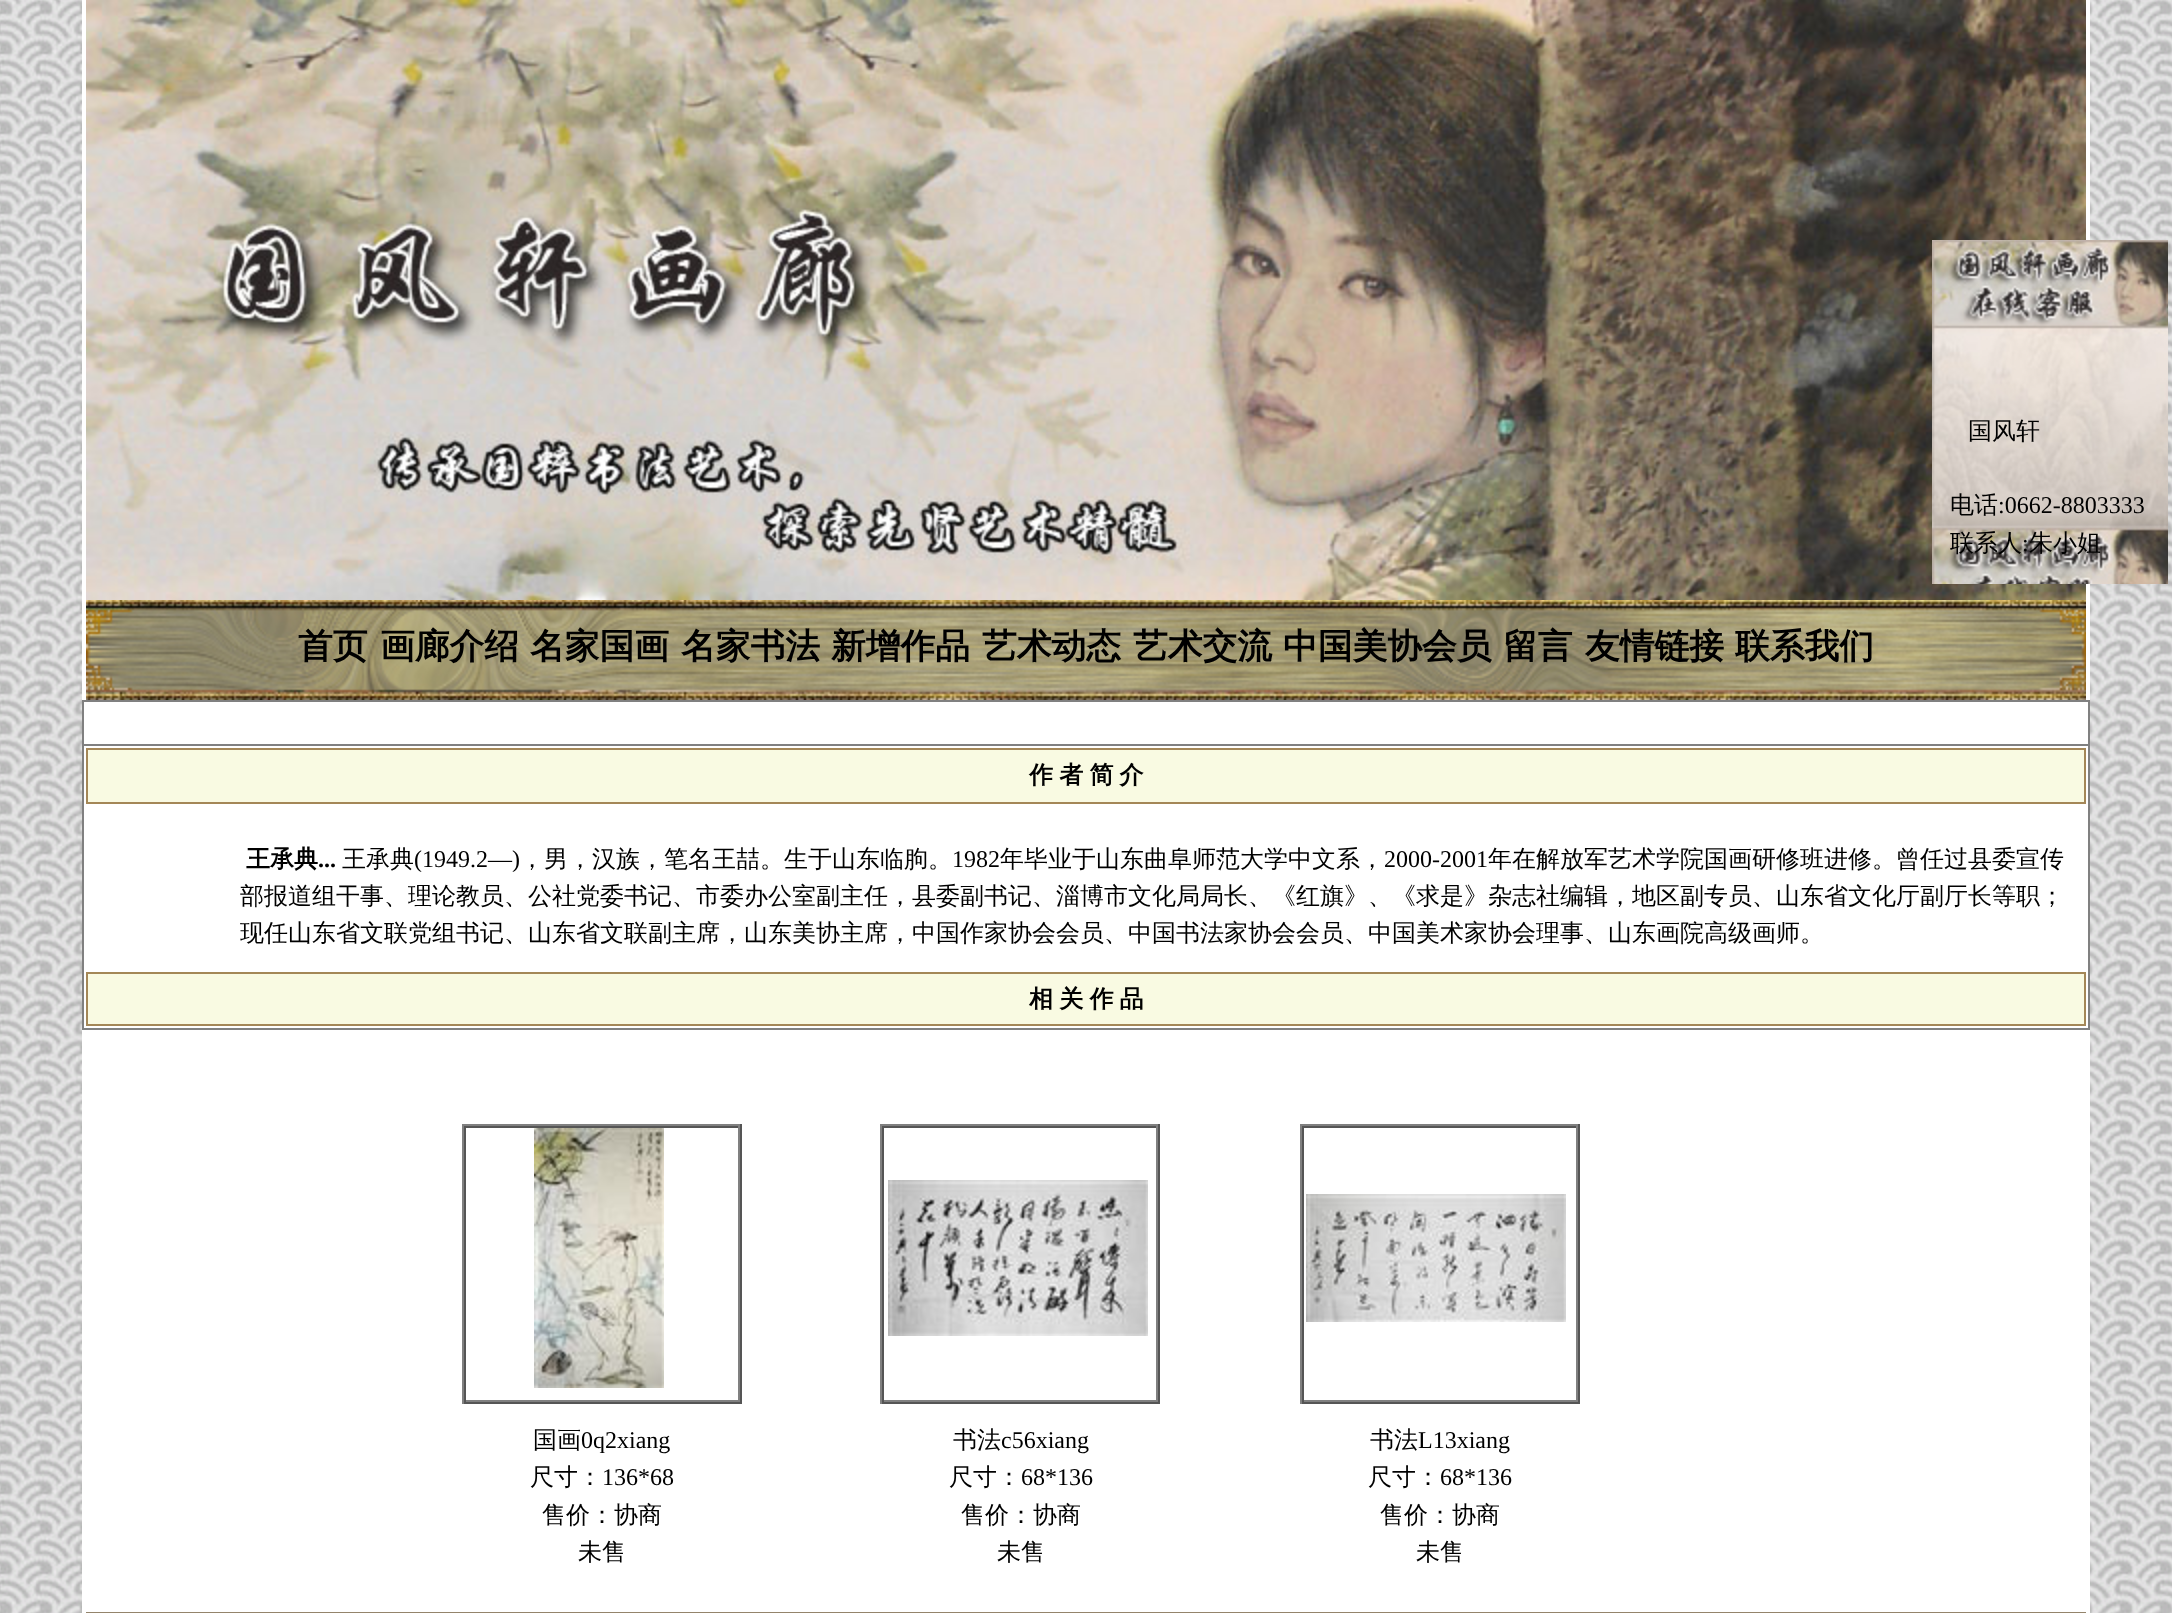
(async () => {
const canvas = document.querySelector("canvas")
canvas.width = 2172
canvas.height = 1613
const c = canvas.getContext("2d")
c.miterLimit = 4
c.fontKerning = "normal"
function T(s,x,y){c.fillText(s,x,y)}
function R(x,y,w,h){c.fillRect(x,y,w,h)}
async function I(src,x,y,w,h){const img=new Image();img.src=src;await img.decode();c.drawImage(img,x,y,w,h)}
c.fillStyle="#fff"
R(0,0,2172,1613)
await I("1.png",0,0,2172,1613)
R(82,0,2008,1613)
await I("3.png",86,0,2000,600)
await I("2.png",1932,240,236,344)
c.font="500 24px WenQuanYi Zen Hei"
c.fillStyle="#000"
T("国风轩",1968,439)
T("电话",1950,513)
c.font="24px Liberation Serif"
T(":0662-8803333",1998,513)
c.font="500 24px WenQuanYi Zen Hei"
T("联系人",1950,551)
c.font="24px Liberation Serif"
T(":",2022,551)
c.font="500 24px WenQuanYi Zen Hei"
T("朱小姐",2029,551)
c.fillStyle="#94846b"
R(86,1612,2000,1)
await I("4.png",86,600,2000,100)
c.font="bold 34.75px WenQuanYi Zen Hei"
c.fillStyle="#000"
T("首页",298,658)
T("画廊介绍",380,658)
T("名家国画",530,658)
T("名家书法",681,658)
T("新增作品",831,658)
T("艺术动态",982,658)
T("艺术交流",1133,658)
T("中国美协会员",1283,658)
T("留言",1503,658)
T("友情链接",1585,658)
T("联系我们",1735,658)
c.fillStyle="#808080"
R(82,700,2008,2)
R(2088,700,2,330)
R(82,1028,2008,2)
R(82,700,2,330)
R(82,744,2008,2)
c.fillStyle="#a48757"
R(86,748,2000,56)
c.fillStyle="#f9fae2"
R(88,750,1996,52)
c.wordSpacing="-1px"
c.font="bold 24px WenQuanYi Zen Hei"
c.fillStyle="#000"
T("作 者 简 介",1029,783)
c.wordSpacing="0px"
T("王承典",246,867)
c.font="bold 24px Liberation Serif"
T("...",318,867)
c.font="500 24px WenQuanYi Zen Hei"
T("王承典",342,867)
c.font="24px Liberation Serif"
T("(1949.2—)",414,867)
c.font="500 24px WenQuanYi Zen Hei"
T("，男，汉族，笔名王喆。生于山东临朐。",520,867)
c.font="24px Liberation Serif"
T("1982",952,867)
c.font="500 24px WenQuanYi Zen Hei"
T("年毕业于山东曲阜师范大学中文系，",1000,867)
c.font="24px Liberation Serif"
T("2000-2001",1384,867)
c.font="500 24px WenQuanYi Zen Hei"
T("年在解放军艺术学院国画研修班进修。曾任过县委宣传",1488,867)
T("部报道组干事、理论教员、公社党委书记、市委办公室副主任，县委副书记、淄博市文化局局长、《红旗》、《求是》杂志社编辑，地区副专员、山东省文化厅副厅长等职；",240,904)
T("现任山东省文联党组书记、山东省文联副主席，山东美协主席，中国作家协会会员、中国书法家协会会员、中国美术家协会理事、山东画院高级画师。",240,941)
c.fillStyle="#a48757"
R(86,972,2000,54)
c.fillStyle="#f9fae2"
R(88,974,1996,50)
c.wordSpacing="-1px"
c.font="bold 24px WenQuanYi Zen Hei"
c.fillStyle="#000"
T("相 关 作 品",1029,1007)
c.fillStyle="#808080"
R(462,1124,280,2)
c.fillStyle="#555"
R(740,1124,2,280)
R(462,1402,280,2)
c.fillStyle="#808080"
R(462,1124,2,280)
c.fillStyle="#555"
R(464,1126,276,2)
c.fillStyle="#808080"
R(738,1126,2,276)
R(464,1400,276,2)
c.fillStyle="#555"
R(464,1126,2,276)
await I("5.png",534,1128,130,260)
c.wordSpacing="0px"
c.font="500 24px WenQuanYi Zen Hei"
c.fillStyle="#000"
T("国画",533,1448)
c.font="24px Liberation Serif"
T("0q2xiang",581,1448)
c.font="500 24px WenQuanYi Zen Hei"
T("尺寸：",530,1485)
c.font="24px Liberation Serif"
T("136*68",602,1485)
c.font="500 24px WenQuanYi Zen Hei"
T("售价：协商",542,1523)
T("未售",578,1560)
c.fillStyle="#808080"
R(880,1124,280,2)
c.fillStyle="#555"
R(1158,1124,2,280)
R(880,1402,280,2)
c.fillStyle="#808080"
R(880,1124,2,280)
c.fillStyle="#555"
R(882,1126,276,2)
c.fillStyle="#808080"
R(1156,1126,2,276)
R(882,1400,276,2)
c.fillStyle="#555"
R(882,1126,2,276)
await I("6.png",888,1180,260,156)
c.fillStyle="#000"
T("书法",953,1448)
c.font="24px Liberation Serif"
T("c56xiang",1001,1448)
c.font="500 24px WenQuanYi Zen Hei"
T("尺寸：",949,1485)
c.font="24px Liberation Serif"
T("68*136",1021,1485)
c.font="500 24px WenQuanYi Zen Hei"
T("售价：协商",961,1523)
T("未售",997,1560)
c.fillStyle="#808080"
R(1300,1124,280,2)
c.fillStyle="#555"
R(1578,1124,2,280)
R(1300,1402,280,2)
c.fillStyle="#808080"
R(1300,1124,2,280)
c.fillStyle="#555"
R(1302,1126,276,2)
c.fillStyle="#808080"
R(1576,1126,2,276)
R(1302,1400,276,2)
c.fillStyle="#555"
R(1302,1126,2,276)
await I("7.png",1306,1194,260,128)
c.fillStyle="#000"
T("书法",1370,1448)
c.font="24px Liberation Serif"
T("L13xiang",1418,1448)
c.font="500 24px WenQuanYi Zen Hei"
T("尺寸：",1368,1485)
c.font="24px Liberation Serif"
T("68*136",1440,1485)
c.font="500 24px WenQuanYi Zen Hei"
T("售价：协商",1380,1523)
T("未售",1416,1560)
})()
